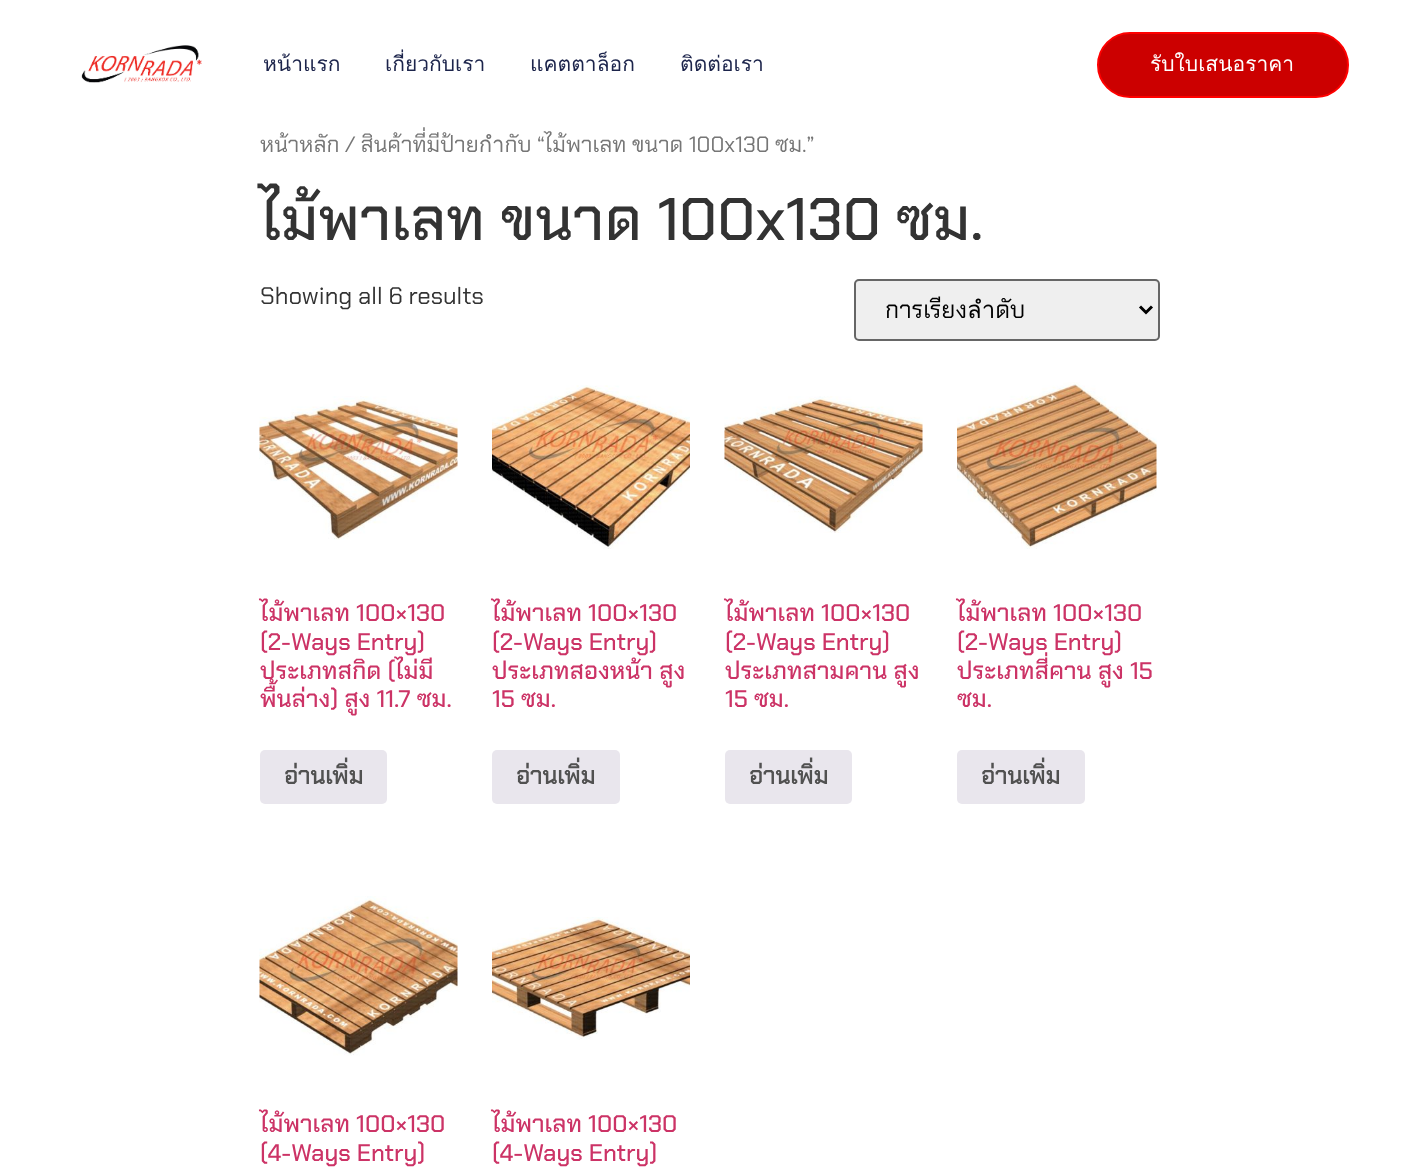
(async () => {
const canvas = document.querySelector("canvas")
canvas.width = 1419
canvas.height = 1167
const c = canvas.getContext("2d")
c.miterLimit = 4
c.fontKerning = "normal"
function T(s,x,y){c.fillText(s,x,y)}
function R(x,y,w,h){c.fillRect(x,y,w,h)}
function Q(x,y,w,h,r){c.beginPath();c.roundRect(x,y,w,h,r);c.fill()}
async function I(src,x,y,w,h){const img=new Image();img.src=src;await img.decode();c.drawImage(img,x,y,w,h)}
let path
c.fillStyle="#fff"
R(0,0,1419,1167)
c.font="22.1px Chakra Petch"
c.fillStyle="#767676"
T("หน้าหลัก / สินค้าที่มีป้ายกำกับ “ไม้พาเลท ขนาด 100x130 ซม.”",260,152)
c.fillStyle="#fff"
R(408,127,3,1)
await I("1.png",81,45,121,38)
c.font="21px Loma"
c.fillStyle="#1c244b"
T("หน้าแรก",263,71)
T("เกี่ยวกับเรา",385,71)
T("แคตตาล็อก",530,71)
T("ติดต่อเรา",680,71)
c.fillStyle="#c00"
c.beginPath()
c.roundRect(1098,33,250,64,32)
c.fill()
c.strokeStyle="#f00"
c.lineWidth=2
c.stroke()
c.fillStyle="#fff"
T("รับใบเสนอราคา",1150,71)
c.font="500 60px Chakra Petch"
c.fillStyle="#333"
T("ไม้พาเลท ขนาด 100x130 ซม.",260,240)
c.font="24px Chakra Petch"
T("Showing all 6 results",260,304)
c.fillStyle="#efefef"
c.beginPath()
c.roundRect(855,280,304,60,4)
c.fill()
c.strokeStyle="#666"
c.stroke()
path = new Path2D("M1140 306.5l6 6l6-6")
c.strokeStyle="#000"
c.lineWidth=3
c.stroke(path)
c.fillStyle="#000"
T("การเรียงลำดับ",885,318)
await I("2.png",259,396,199,144)
c.font="500 24px Chakra Petch"
c.fillStyle="#c36"
T("ไม้พาเลท 100×130",260,621)
T("(2-Ways Entry)",260,650)
T("ประเภทสกิด (ไม่มี",260,679)
T("พื้นล่าง) สูง 11.7 ซม.",260,707)
c.fillStyle="#e9e6ed"
Q(260,750,127,54,5)
c.font="bold 24px Chakra Petch"
c.fillStyle="#515151"
T("อ่านเพิ่ม",284,784)
await I("3.png",492,385,198,164)
c.font="500 24px Chakra Petch"
c.fillStyle="#c36"
T("ไม้พาเลท 100×130",492,621)
T("(2-Ways Entry)",492,650)
T("ประเภทสองหน้า สูง",492,679)
T("15 ซม.",492,707)
c.fillStyle="#e9e6ed"
Q(492,750,128,54,5)
c.font="bold 24px Chakra Petch"
c.fillStyle="#515151"
T("อ่านเพิ่ม",516,784)
await I("4.png",724,396,199,137)
c.font="500 24px Chakra Petch"
c.fillStyle="#c36"
T("ไม้พาเลท 100×130",725,621)
T("(2-Ways Entry)",725,650)
T("ประเภทสามคาน สูง",725,679)
T("15 ซม.",725,707)
c.fillStyle="#e9e6ed"
Q(725,750,127,54,5)
c.font="bold 24px Chakra Petch"
c.fillStyle="#515151"
T("อ่านเพิ่ม",749,784)
await I("5.png",957,382,200,167)
c.font="500 24px Chakra Petch"
c.fillStyle="#c36"
T("ไม้พาเลท 100×130",957,621)
T("(2-Ways Entry)",957,650)
T("ประเภทสี่คาน สูง 15",957,679)
T("ซม.",957,707)
c.fillStyle="#e9e6ed"
Q(957,750,128,54,5)
c.font="bold 24px Chakra Petch"
c.fillStyle="#515151"
T("อ่านเพิ่ม",981,784)
await I("6.png",259,896,199,160)
c.font="500 24px Chakra Petch"
c.fillStyle="#c36"
T("ไม้พาเลท 100×130",260,1132)
T("(4-Ways Entry)",260,1161)
await I("7.png",492,917,198,123)
T("ไม้พาเลท 100×130",492,1132)
T("(4-Ways Entry)",492,1161)
})()
